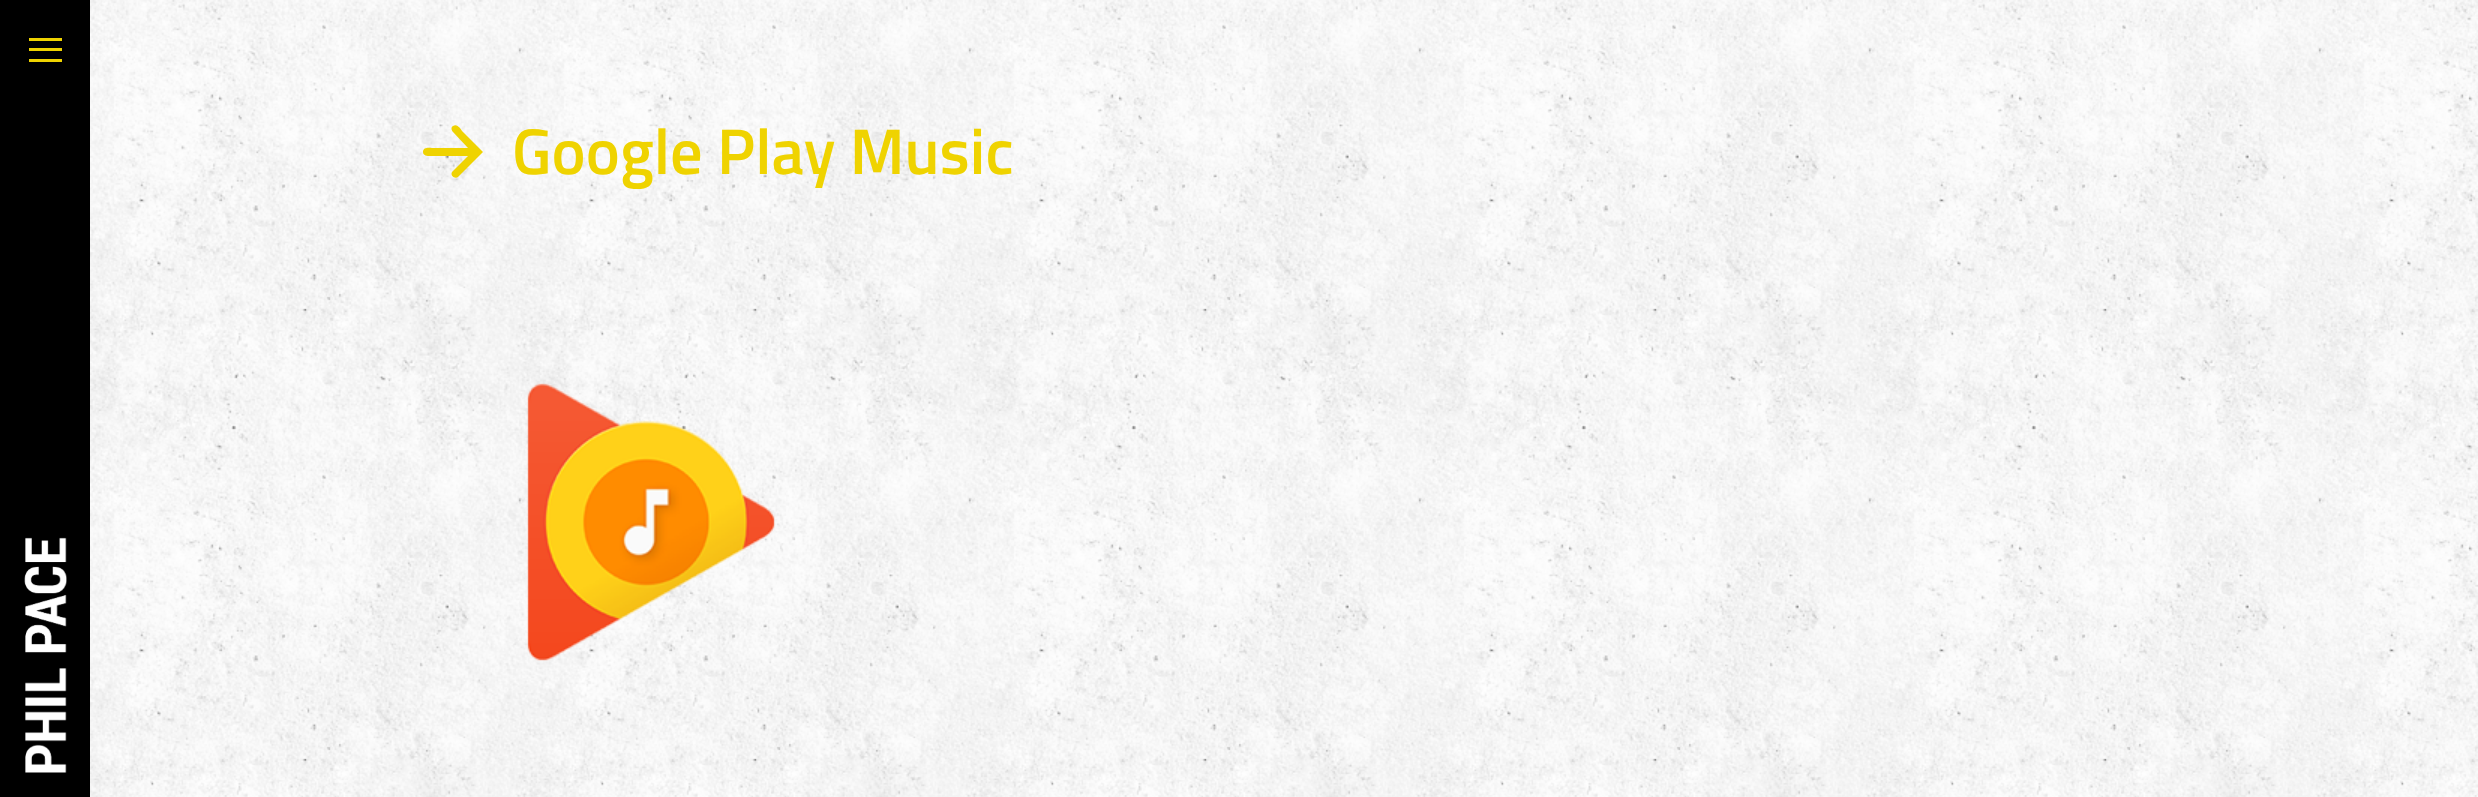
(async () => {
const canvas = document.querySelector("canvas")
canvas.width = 2478
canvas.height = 797
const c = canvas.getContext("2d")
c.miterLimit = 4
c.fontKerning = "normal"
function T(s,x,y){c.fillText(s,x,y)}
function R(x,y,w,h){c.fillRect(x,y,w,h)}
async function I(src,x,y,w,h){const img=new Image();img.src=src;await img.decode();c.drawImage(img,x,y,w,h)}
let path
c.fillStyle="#fff"
R(0,0,2478,797)
await I("1.png",90,0,2388,797)
c.fillStyle="#000"
R(0,0,90,797)
c.fillStyle="#efd300"
R(29,38,33,3)
R(29,48,33,3)
R(29,59,33,3)
await I("2.png",24,537,43,236)
path = new Path2D("M423 152c0-6 8-4 11-4h34l-15-16c-2-2-2-5 0-6c4-3 8 3 9 5l21 21l-25 25c-3 2-8-1-6-5l16-16h-34c-3 0-11 1-11-4z")
c.fill(path)
c.font="600 64.5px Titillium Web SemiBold"
T("Google Play Music",512,174)
await I("3.png",527,383,248,278)
})()
